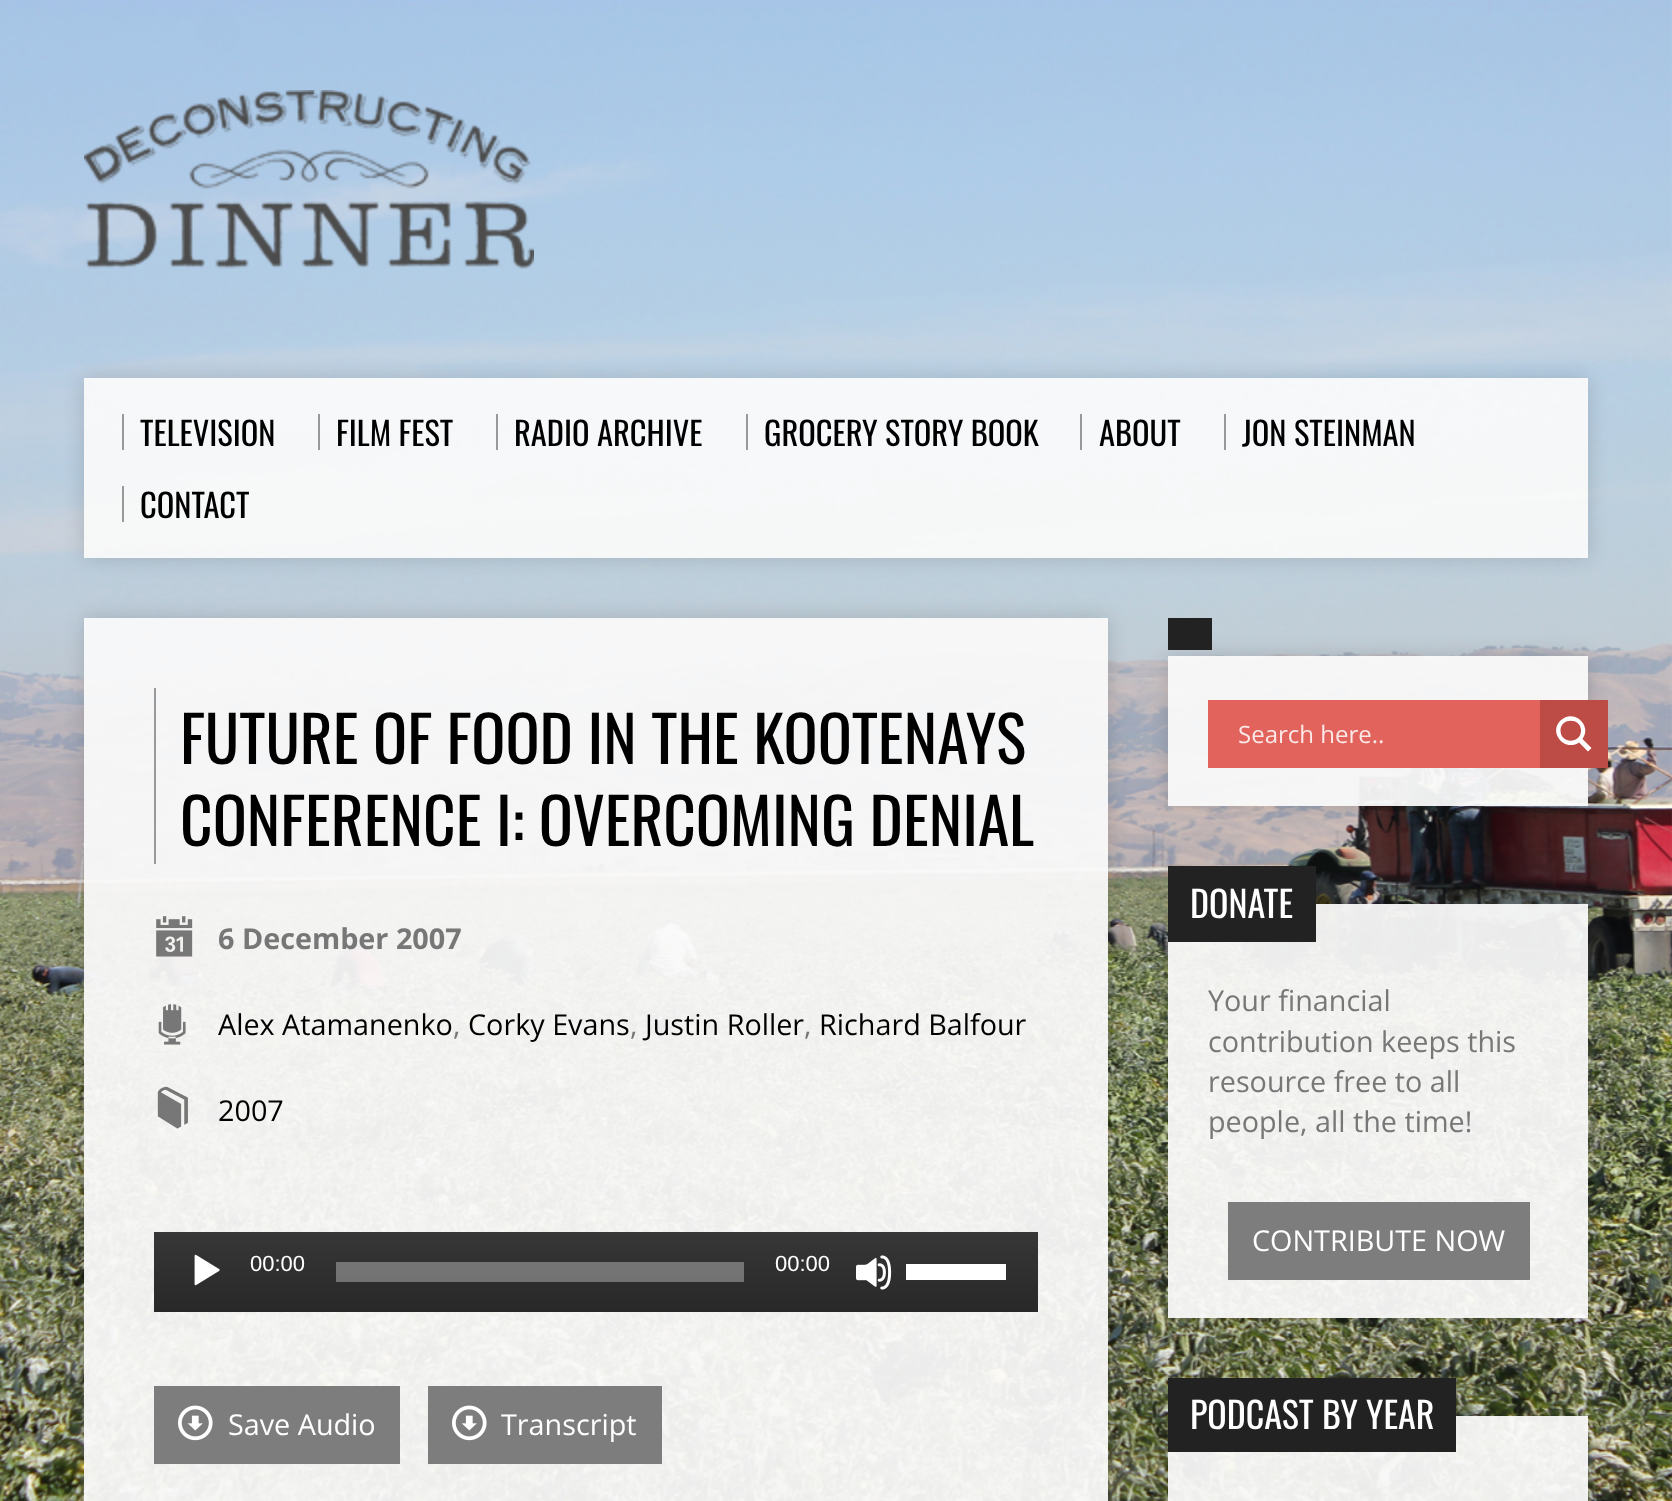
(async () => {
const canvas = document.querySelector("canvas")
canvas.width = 1672
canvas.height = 1501
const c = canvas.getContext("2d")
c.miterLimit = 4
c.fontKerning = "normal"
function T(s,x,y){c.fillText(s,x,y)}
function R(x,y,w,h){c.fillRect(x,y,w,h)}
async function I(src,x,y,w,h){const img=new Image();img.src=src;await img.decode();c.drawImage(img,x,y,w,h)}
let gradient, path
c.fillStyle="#fff"
R(0,0,1672,1501)
await I("1.png",0,0,1672,1501)
await I("2.png",84,90,450,179)
c.save()
path = new Path2D("M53 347h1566v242h-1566zm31 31h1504v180h-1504z")
c.clip(path,"evenodd")
c.fillStyle="#00000026"
c.filter="blur(10px)"
c.beginPath()
c.rect(84,378,1504,180)
c.fill()
c.filter="none"
c.restore()
c.fillStyle="#fafafaf0"
R(84,378,1504,180)
c.fillStyle="#999"
R(122,414,2,36)
c.font="32.5px Oswald"
c.fillStyle="#000"
T("TELEVISION",140,446)
c.fillStyle="#999"
R(318,414,2,36)
c.fillStyle="#000"
T("FILM FEST",336,446)
c.fillStyle="#999"
R(496,414,2,36)
c.fillStyle="#000"
T("RADIO ARCHIVE",514,446)
c.fillStyle="#999"
R(746,414,2,36)
c.fillStyle="#000"
T("GROCERY STORY BOOK",764,446)
c.fillStyle="#999"
R(1080,414,2,36)
c.fillStyle="#000"
T("ABOUT",1099,446)
c.fillStyle="#999"
R(1224,414,2,36)
c.fillStyle="#000"
T("JON STEINMAN",1242,446)
c.fillStyle="#999"
R(122,486,2,36)
c.fillStyle="#000"
T("CONTACT",140,518)
c.save()
path = new Path2D("M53 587h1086v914h-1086zm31 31h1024v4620h-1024z")
c.clip(path,"evenodd")
c.fillStyle="#00000026"
c.filter="blur(10px)"
c.beginPath()
c.rect(84,618,1024,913)
c.fill()
c.filter="none"
c.restore()
c.fillStyle="#fafafaf0"
R(84,618,1024,883)
c.fillStyle="#999"
R(154,688,2,176)
c.font="63.4px Oswald"
c.fillStyle="#000"
T("FUTURE OF FOOD IN THE KOOTENAYS",180,764)
T("CONFERENCE I: OVERCOMING DENIAL",180,846)
await I("3.png",156,916,37,41)
c.font="bold 28.75px Open Sans"
c.fillStyle="#777"
T("6 December 2007",218,949)
await I("4.png",158,1004,28,41)
c.font="28.75px Open Sans"
c.fillStyle="#000"
T("Alex Atamanenko",218,1035)
c.fillStyle="#777"
T(",",453,1035)
c.fillStyle="#000"
T("Corky Evans",468,1035)
c.fillStyle="#777"
T(",",630,1035)
c.fillStyle="#000"
T("Justin Roller",645,1035)
c.fillStyle="#777"
T(",",804,1035)
c.fillStyle="#000"
T("Richard Balfour",819,1035)
await I("5.png",157,1086,31,43)
T("2007",218,1121)
gradient = c.createLinearGradient(596,1232,596,1312)
gradient.addColorStop(0,"#373737")
gradient.addColorStop(1,"#282828")
c.fillStyle = gradient
R(154,1232,884,80)
await I("6.png",194,1254,26,32)
c.font="22px Liberation Sans"
c.fillStyle="#fff"
T("00:00",250,1271)
c.fillStyle="#ffffff54"
R(336,1262,408,20)
c.fillStyle="#fff"
T("00:00",775,1271)
await I("7.png",856,1255,36,35)
R(906,1264,100,16)
c.fillStyle="#7d7d7d"
R(154,1386,246,78)
await I("8.png",178,1405,35,36)
c.font="28.75px Open Sans"
c.fillStyle="#fff"
T("Save Audio",228,1435)
c.fillStyle="#7d7d7d"
R(428,1386,234,78)
await I("8.png",452,1405,35,36)
c.fillStyle="#fff"
T("Transcript",501,1435)
c.save()
path = new Path2D("M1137 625h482v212h-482zm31 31h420v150h-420z")
c.clip(path,"evenodd")
c.fillStyle="#00000026"
c.filter="blur(10px)"
c.beginPath()
c.rect(1168,656,420,150)
c.fill()
c.filter="none"
c.restore()
c.fillStyle="#fafafaf0"
R(1168,656,420,150)
c.fillStyle="#222"
R(1168,618,44,32)
c.fillStyle="#e1635c"
R(1208,700,332,68)
c.font="24px Open Sans"
c.fillStyle="#fbe8e7"
T("Search here..",1238,743)
c.fillStyle="#be4c46"
R(1540,700,68,68)
c.fillStyle="#fff"
path = new Path2D("M1591.5 748l-9-9c10-14-9-31-22-18.5c-12.5 12.5 4.5 31.5 18.5 22l9 9zm-31-17.5c0-13 20.5-13 20.5 0c0 13.5-20.5 13.5-20.5 0z")
c.fill(path)
c.save()
path = new Path2D("M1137 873h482v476h-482zm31 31h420v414h-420z")
c.clip(path,"evenodd")
c.fillStyle="#00000026"
c.filter="blur(10px)"
c.beginPath()
c.rect(1168,904,420,414)
c.fill()
c.filter="none"
c.restore()
c.fillStyle="#fafafaf0"
R(1168,904,420,414)
c.fillStyle="#222"
R(1168,866,148,76)
c.font="36px Oswald"
c.fillStyle="#fff"
T("DONATE",1190,918)
c.font="28.75px Open Sans"
c.fillStyle="#777"
T("Your financial",1208,1011)
T("contribution keeps this",1208,1052)
T("resource free to all",1208,1092)
T("people, all the time!",1208,1132)
c.fillStyle="#7d7d7d"
R(1228,1202,302,78)
c.fillStyle="#fff"
T("CONTRIBUTE NOW",1252,1251)
c.save()
path = new Path2D("M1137 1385h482v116h-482zm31 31h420v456h-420z")
c.clip(path,"evenodd")
c.fillStyle="#00000026"
c.filter="blur(10px)"
c.beginPath()
c.rect(1168,1416,420,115)
c.fill()
c.filter="none"
c.restore()
c.fillStyle="#fafafaf0"
R(1168,1416,420,85)
c.fillStyle="#222"
R(1168,1378,288,74)
c.font="36px Oswald"
c.fillStyle="#fff"
T("PODCAST BY YEAR",1190,1429)
})()
